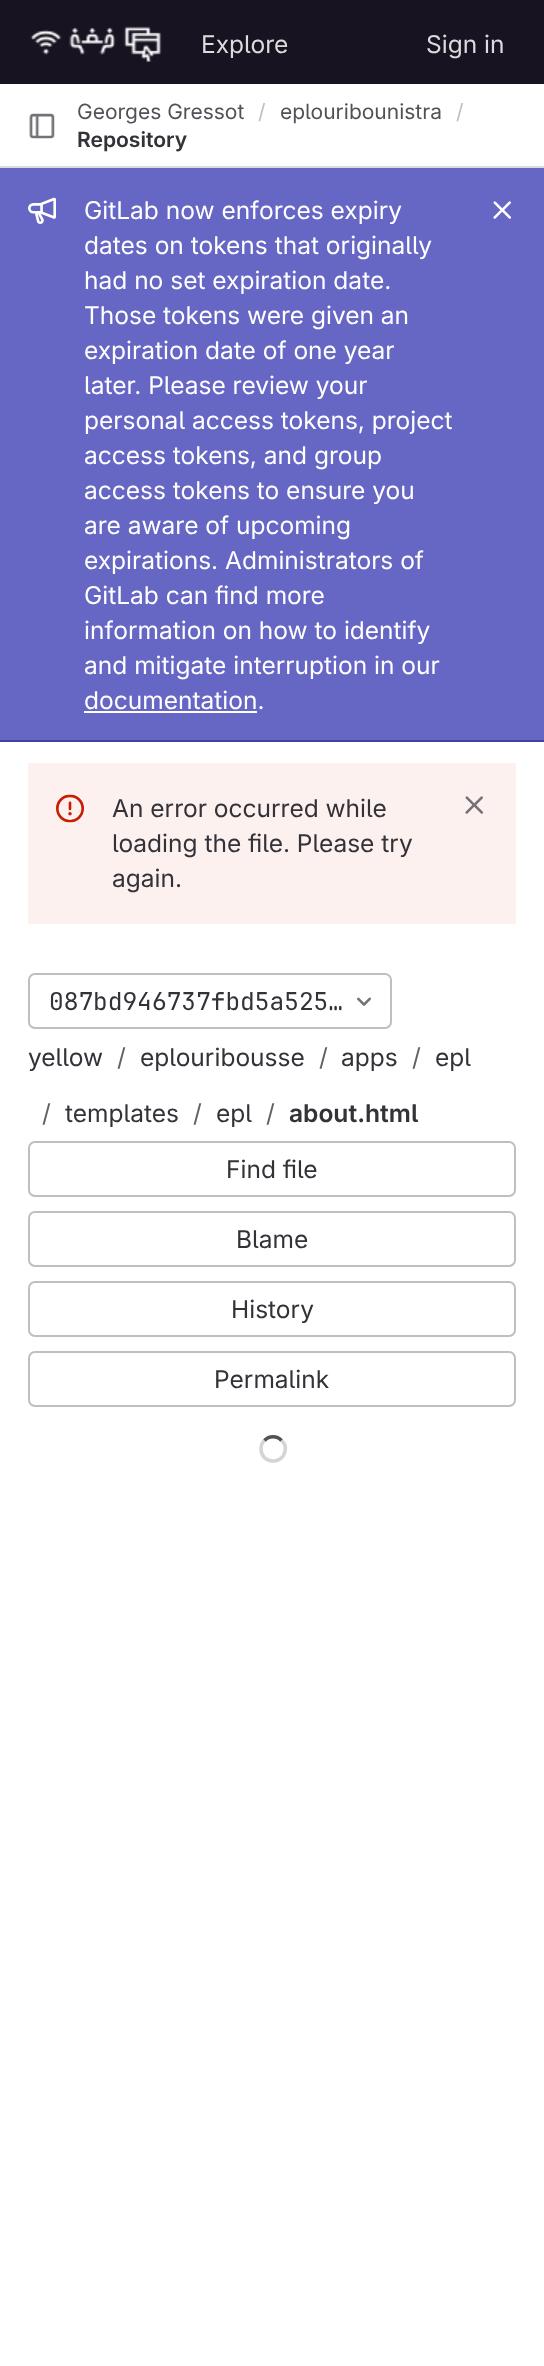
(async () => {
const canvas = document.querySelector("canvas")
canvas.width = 544
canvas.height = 2366
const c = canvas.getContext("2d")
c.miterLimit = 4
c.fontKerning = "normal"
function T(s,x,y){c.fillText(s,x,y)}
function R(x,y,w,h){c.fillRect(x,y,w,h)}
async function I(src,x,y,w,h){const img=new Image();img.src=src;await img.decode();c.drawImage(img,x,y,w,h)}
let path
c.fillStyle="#fff"
R(0,0,544,2366)
c.fillStyle="#171321"
R(0,0,544,84)
await I("1.png",30,26,132,37)
c.font="24.5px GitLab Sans"
c.fillStyle="#dcdcde"
T("Explore",201,53)
T("Sign in",426,53)
R(0,166,544,2)
await I("2.png",29,113,26,26)
c.font="21px GitLab Sans"
c.fillStyle="#535158"
T("Georges Gressot",77,119)
c.fillStyle="#bfbfc3"
T("/",258,119)
c.fillStyle="#535158"
T("eplouribounistra",280,119)
c.fillStyle="#bfbfc3"
T("/",456,119)
c.font="600 21px GitLab Sans"
c.fillStyle="#333238"
T("Repository",77,147)
c.fillStyle="#6666c4"
R(0,168,544,572)
c.fillStyle="#41419f"
R(0,740,544,2)
await I("3.png",28,197,28,27)
c.font="24.5px GitLab Sans"
c.fillStyle="#fff"
T("GitLab now enforces expiry",84,219)
T("dates on tokens that originally",84,254)
T("had no set expiration date.",84,289)
T("Those tokens were given an",84,324)
T("expiration date of one year",84,359)
T("later. Please review your",84,394)
T("personal access tokens, project",84,429)
T("access tokens, and group",84,464)
T("access tokens to ensure you",84,499)
T("are aware of upcoming",84,534)
T("expirations. Administrators of",84,569)
T("GitLab can find more",84,604)
T("information on how to identify",84,639)
T("and mitigate interruption in our",84,674)
T("documentation.",84,709)
R(84,711,173,2)
await I("4.png",493,201,19,18)
c.fillStyle="#fcf1ef"
R(28,763,488,161)
await I("5.png",56,794,28,29)
c.fillStyle="#333238"
T("An error occurred while",112,817)
T("loading the file. Please try",112,852)
T("again.",112,887)
await I("6.png",465,796,19,18)
c.beginPath()
c.roundRect(29,974,362,54,6)
c.strokeStyle="#bfbfc3"
c.lineWidth=2
c.stroke()
c.font="24.5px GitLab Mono"
T("087bd946737fbd5a525…",49,1010)
await I("7.png",357,997,14,9)
c.font="24.5px GitLab Sans"
T("yellow",28,1066)
c.fillStyle="#626168"
T("/",117,1066)
c.fillStyle="#333238"
T("eplouribousse",140,1066)
c.fillStyle="#626168"
T("/",319,1066)
c.fillStyle="#333238"
T("apps",341,1066)
c.fillStyle="#626168"
T("/",412,1066)
c.fillStyle="#333238"
T("epl",435,1066)
c.fillStyle="#626168"
T("/",42,1122)
c.fillStyle="#333238"
T("templates",65,1122)
c.fillStyle="#626168"
T("/",193,1122)
c.fillStyle="#333238"
T("epl",216,1122)
c.fillStyle="#626168"
T("/",266,1122)
c.font="600 24.5px GitLab Sans"
c.fillStyle="#333238"
T("about.html",289,1122)
c.beginPath()
c.roundRect(29,1142,486,54,6)
c.stroke()
c.font="24.5px GitLab Sans"
T("Find file",226,1178)
c.beginPath()
c.roundRect(29,1212,486,54,6)
c.stroke()
T("Blame",236,1248)
c.beginPath()
c.roundRect(29,1282,486,54,6)
c.stroke()
T("History",231,1318)
c.beginPath()
c.roundRect(29,1352,486,54,6)
c.stroke()
T("Permalink",214,1388)
path = new Path2D("M264.5 1440.5c4.5-5 12.5-5 17 0")
c.strokeStyle="#535158"
c.lineWidth=3.5
c.stroke(path)
path = new Path2D("M281.5 1440.5c3 2.5 4.5 7 3.5 11c-3 14-24 12-24-2.5c0-3 1-6.5 3.5-8.5")
c.strokeStyle="#53515840"
c.stroke(path)
})()
